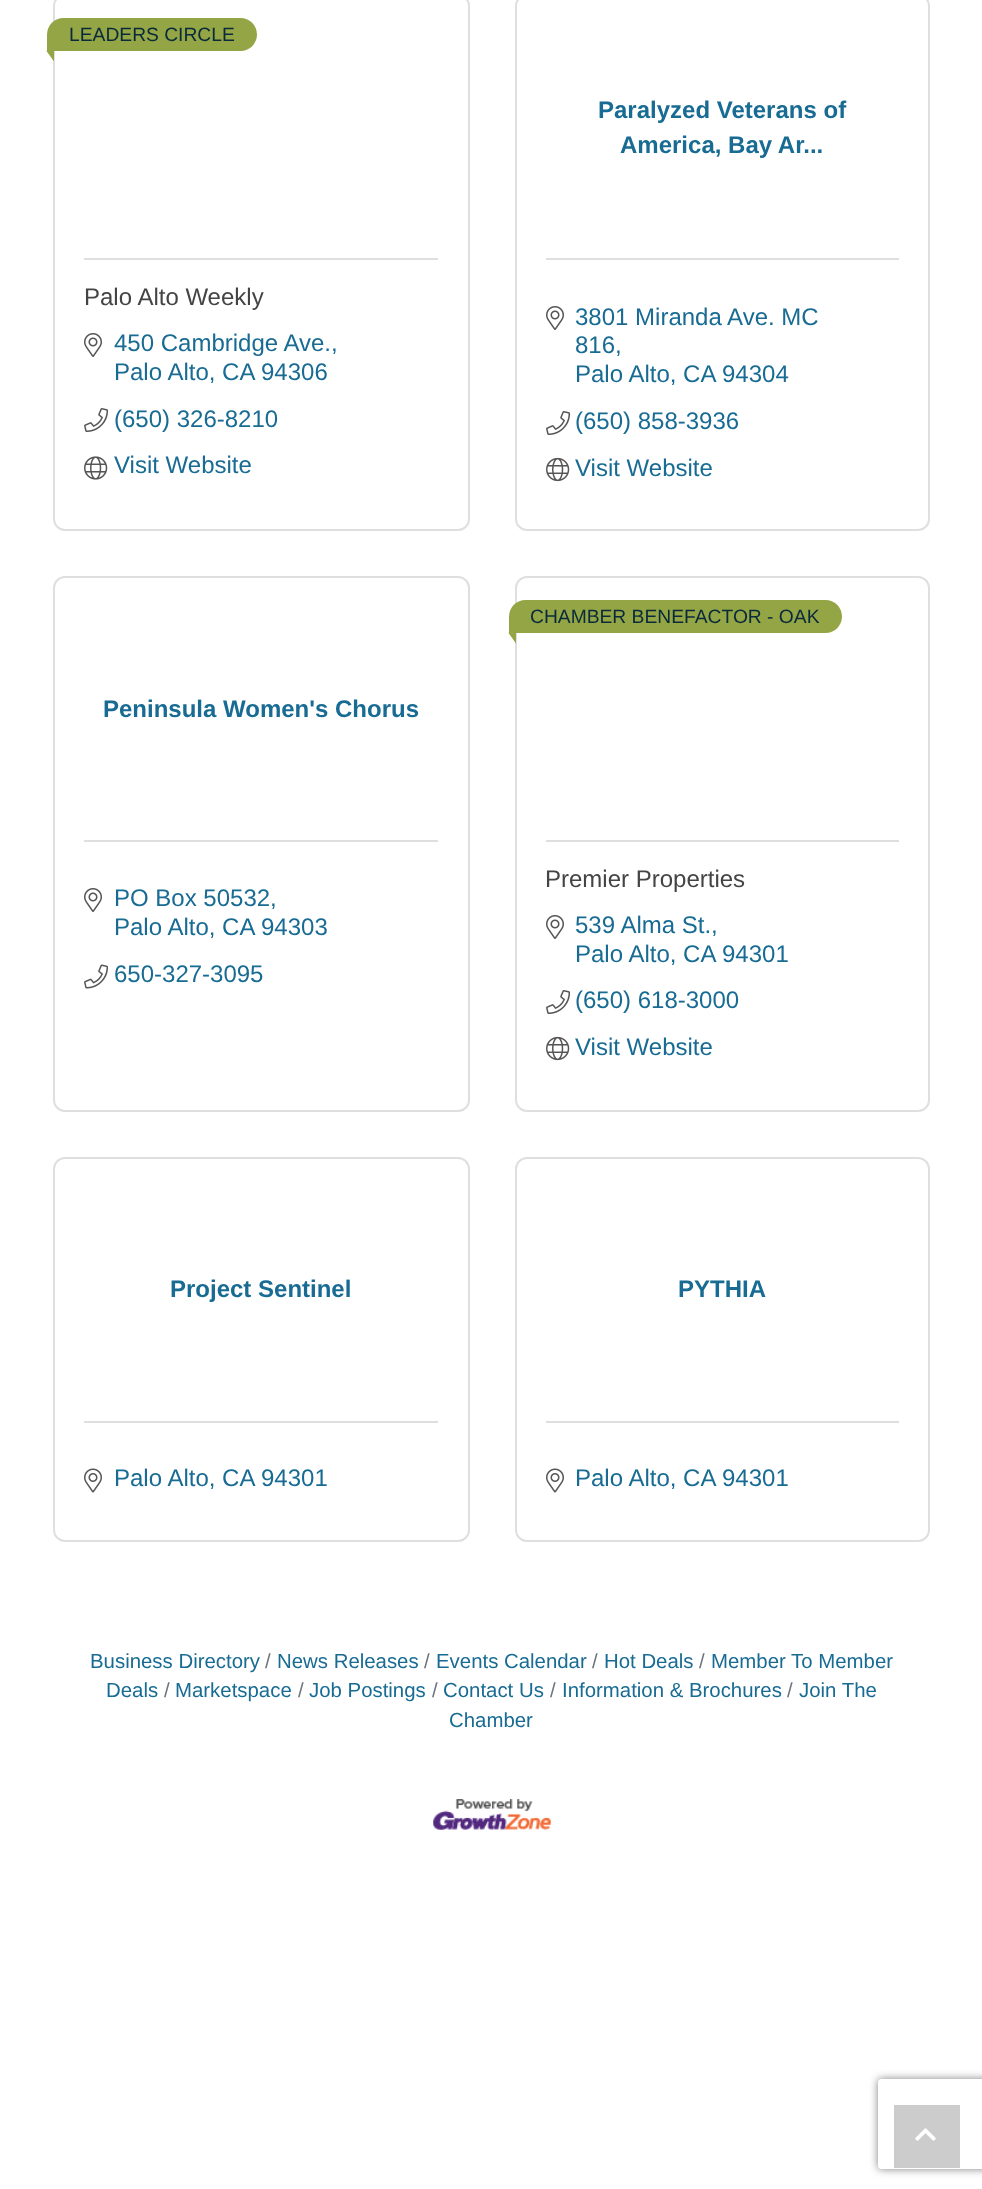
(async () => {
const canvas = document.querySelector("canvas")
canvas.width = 982
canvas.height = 2189
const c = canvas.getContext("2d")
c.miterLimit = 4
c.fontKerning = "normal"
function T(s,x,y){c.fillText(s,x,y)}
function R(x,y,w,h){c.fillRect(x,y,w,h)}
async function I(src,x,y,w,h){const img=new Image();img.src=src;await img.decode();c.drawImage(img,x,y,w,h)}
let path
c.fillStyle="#fff"
R(0,0,982,2189)
c.beginPath()
c.roundRect(54,-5,415,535,11)
c.strokeStyle="#dfdfdf"
c.lineWidth=2
c.stroke()
c.fillStyle="#94a545"
c.beginPath()
c.roundRect(47,18,210,33,[16.5,16.5,16.5,1])
c.fill()
c.font="19.25px Liberation Sans"
c.fillStyle="#092a3a"
T("LEADERS CIRCLE",69,41)
c.fillStyle="#94a545"
path = new Path2D("M54 40.5v21l-7.5-10.5z")
c.fill(path)
c.fillStyle="#dfdfdf"
R(84,258,354,2)
c.font="24px Liberation Sans"
c.fillStyle="#444"
T("Palo Alto Weekly",84,305)
await I("1.png",84,333,18,24)
c.fillStyle="#186b93"
T("450 Cambridge Ave.,",114,351)
T("Palo Alto, CA",114,380)
T("94306",261,380)
await I("2.png",84,408,24,24)
T("(650) 326-8210",114,427)
await I("3.png",84,456,24,24)
T("Visit Website",114,473)
c.beginPath()
c.roundRect(516,-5,413,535,11)
c.stroke()
c.font="bold 24px Liberation Sans"
T("Paralyzed Veterans of",598,118)
T("America, Bay Ar...",620,153)
c.fillStyle="#dfdfdf"
R(546,258,353,2)
await I("1.png",546,306,18,24)
c.font="24px Liberation Sans"
c.fillStyle="#186b93"
T("3801 Miranda Ave. MC",575,325)
T("816,",575,353)
T("Palo Alto, CA",575,382)
T("94304",722,382)
await I("2.png",546,411,24,24)
T("(650) 858-3936",575,429)
await I("4.png",546,457,24,25)
T("Visit Website",575,476)
c.beginPath()
c.roundRect(54,577,415,534,11)
c.stroke()
c.font="bold 24px Liberation Sans"
T("Peninsula Women's Chorus",103,717)
c.fillStyle="#dfdfdf"
R(84,840,354,2)
await I("1.png",84,888,18,24)
c.font="24px Liberation Sans"
c.fillStyle="#186b93"
T("PO Box 50532,",114,906)
T("Palo Alto, CA",114,935)
T("94303",261,935)
await I("5.png",84,964,24,25)
T("650-327-3095",114,982)
c.beginPath()
c.roundRect(516,577,413,534,11)
c.stroke()
c.fillStyle="#94a545"
c.beginPath()
c.roundRect(509,600,333,33,[16.5,16.5,16.5,1])
c.fill()
c.font="19.25px Liberation Sans"
c.fillStyle="#092a3a"
T("CHAMBER BENEFACTOR - OAK",530,623)
c.fillStyle="#94a545"
path = new Path2D("M516 622.5v21l-7.5-10.5z")
c.fill(path)
c.fillStyle="#dfdfdf"
R(546,840,353,2)
c.font="24px Liberation Sans"
c.fillStyle="#444"
T("Premier Properties",545,887)
await I("1.png",546,915,18,24)
c.fillStyle="#186b93"
T("539 Alma St.,",575,933)
T("Palo Alto, CA",575,962)
T("94301",722,962)
await I("2.png",546,990,24,24)
T("(650) 618-3000",575,1008)
await I("4.png",546,1036,24,25)
T("Visit Website",575,1055)
c.beginPath()
c.roundRect(54,1158,415,383,11)
c.stroke()
c.font="bold 24px Liberation Sans"
T("Project Sentinel",170,1297)
c.fillStyle="#dfdfdf"
R(84,1421,354,2)
await I("6.png",84,1468,18,25)
c.font="24px Liberation Sans"
c.fillStyle="#186b93"
T("Palo Alto, CA",114,1486)
T("94301",261,1486)
c.beginPath()
c.roundRect(516,1158,413,383,11)
c.stroke()
c.font="bold 24px Liberation Sans"
T("PYTHIA",678,1297)
c.fillStyle="#dfdfdf"
R(546,1421,353,2)
await I("6.png",546,1468,18,25)
c.font="24px Liberation Sans"
c.fillStyle="#186b93"
T("Palo Alto, CA",575,1486)
T("94301",722,1486)
c.font="20.4px Liberation Sans"
T("Business Directory",90,1668)
c.fillStyle="#6c757d"
T("/",699,1668)
c.fillStyle="#186b93"
T("Member To Member",711,1668)
T("Deals",106,1697)
c.fillStyle="#6c757d"
T("/",265,1668)
c.fillStyle="#186b93"
T("News Releases",277,1668)
c.fillStyle="#6c757d"
T("/",424,1668)
c.fillStyle="#186b93"
T("Events Calendar",436,1668)
c.fillStyle="#6c757d"
T("/",592,1668)
c.fillStyle="#186b93"
T("Hot Deals",604,1668)
c.fillStyle="#6c757d"
T("/",164,1697)
c.fillStyle="#186b93"
T("Marketspace",175,1697)
c.fillStyle="#6c757d"
T("/",298,1697)
c.fillStyle="#186b93"
T("Job Postings",309,1697)
c.fillStyle="#6c757d"
T("/",432,1697)
c.fillStyle="#186b93"
T("Contact Us",443,1697)
c.fillStyle="#6c757d"
T("/",787,1697)
c.fillStyle="#186b93"
T("Join The",799,1697)
T("Chamber",449,1727)
c.fillStyle="#6c757d"
T("/",550,1697)
c.fillStyle="#186b93"
T("Information & Brochures",562,1697)
await I("7.png",433,1799,118,31)
c.save()
path = new Path2D("M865 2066h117v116h-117zm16 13h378c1.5 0 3 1.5 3 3v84c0 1.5-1.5 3-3 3h-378c-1.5 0-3-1.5-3-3v-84c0-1.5 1.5-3 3-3z")
c.clip(path,"evenodd")
c.fillStyle="#808080"
c.filter="blur(4px)"
c.beginPath()
c.roundRect(878,2079,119,90,3)
c.fill()
c.filter="none"
c.restore()
c.fillStyle="#ccc"
R(894,2105,66,63)
await I("8.png",915,2128,21,13)
})()
